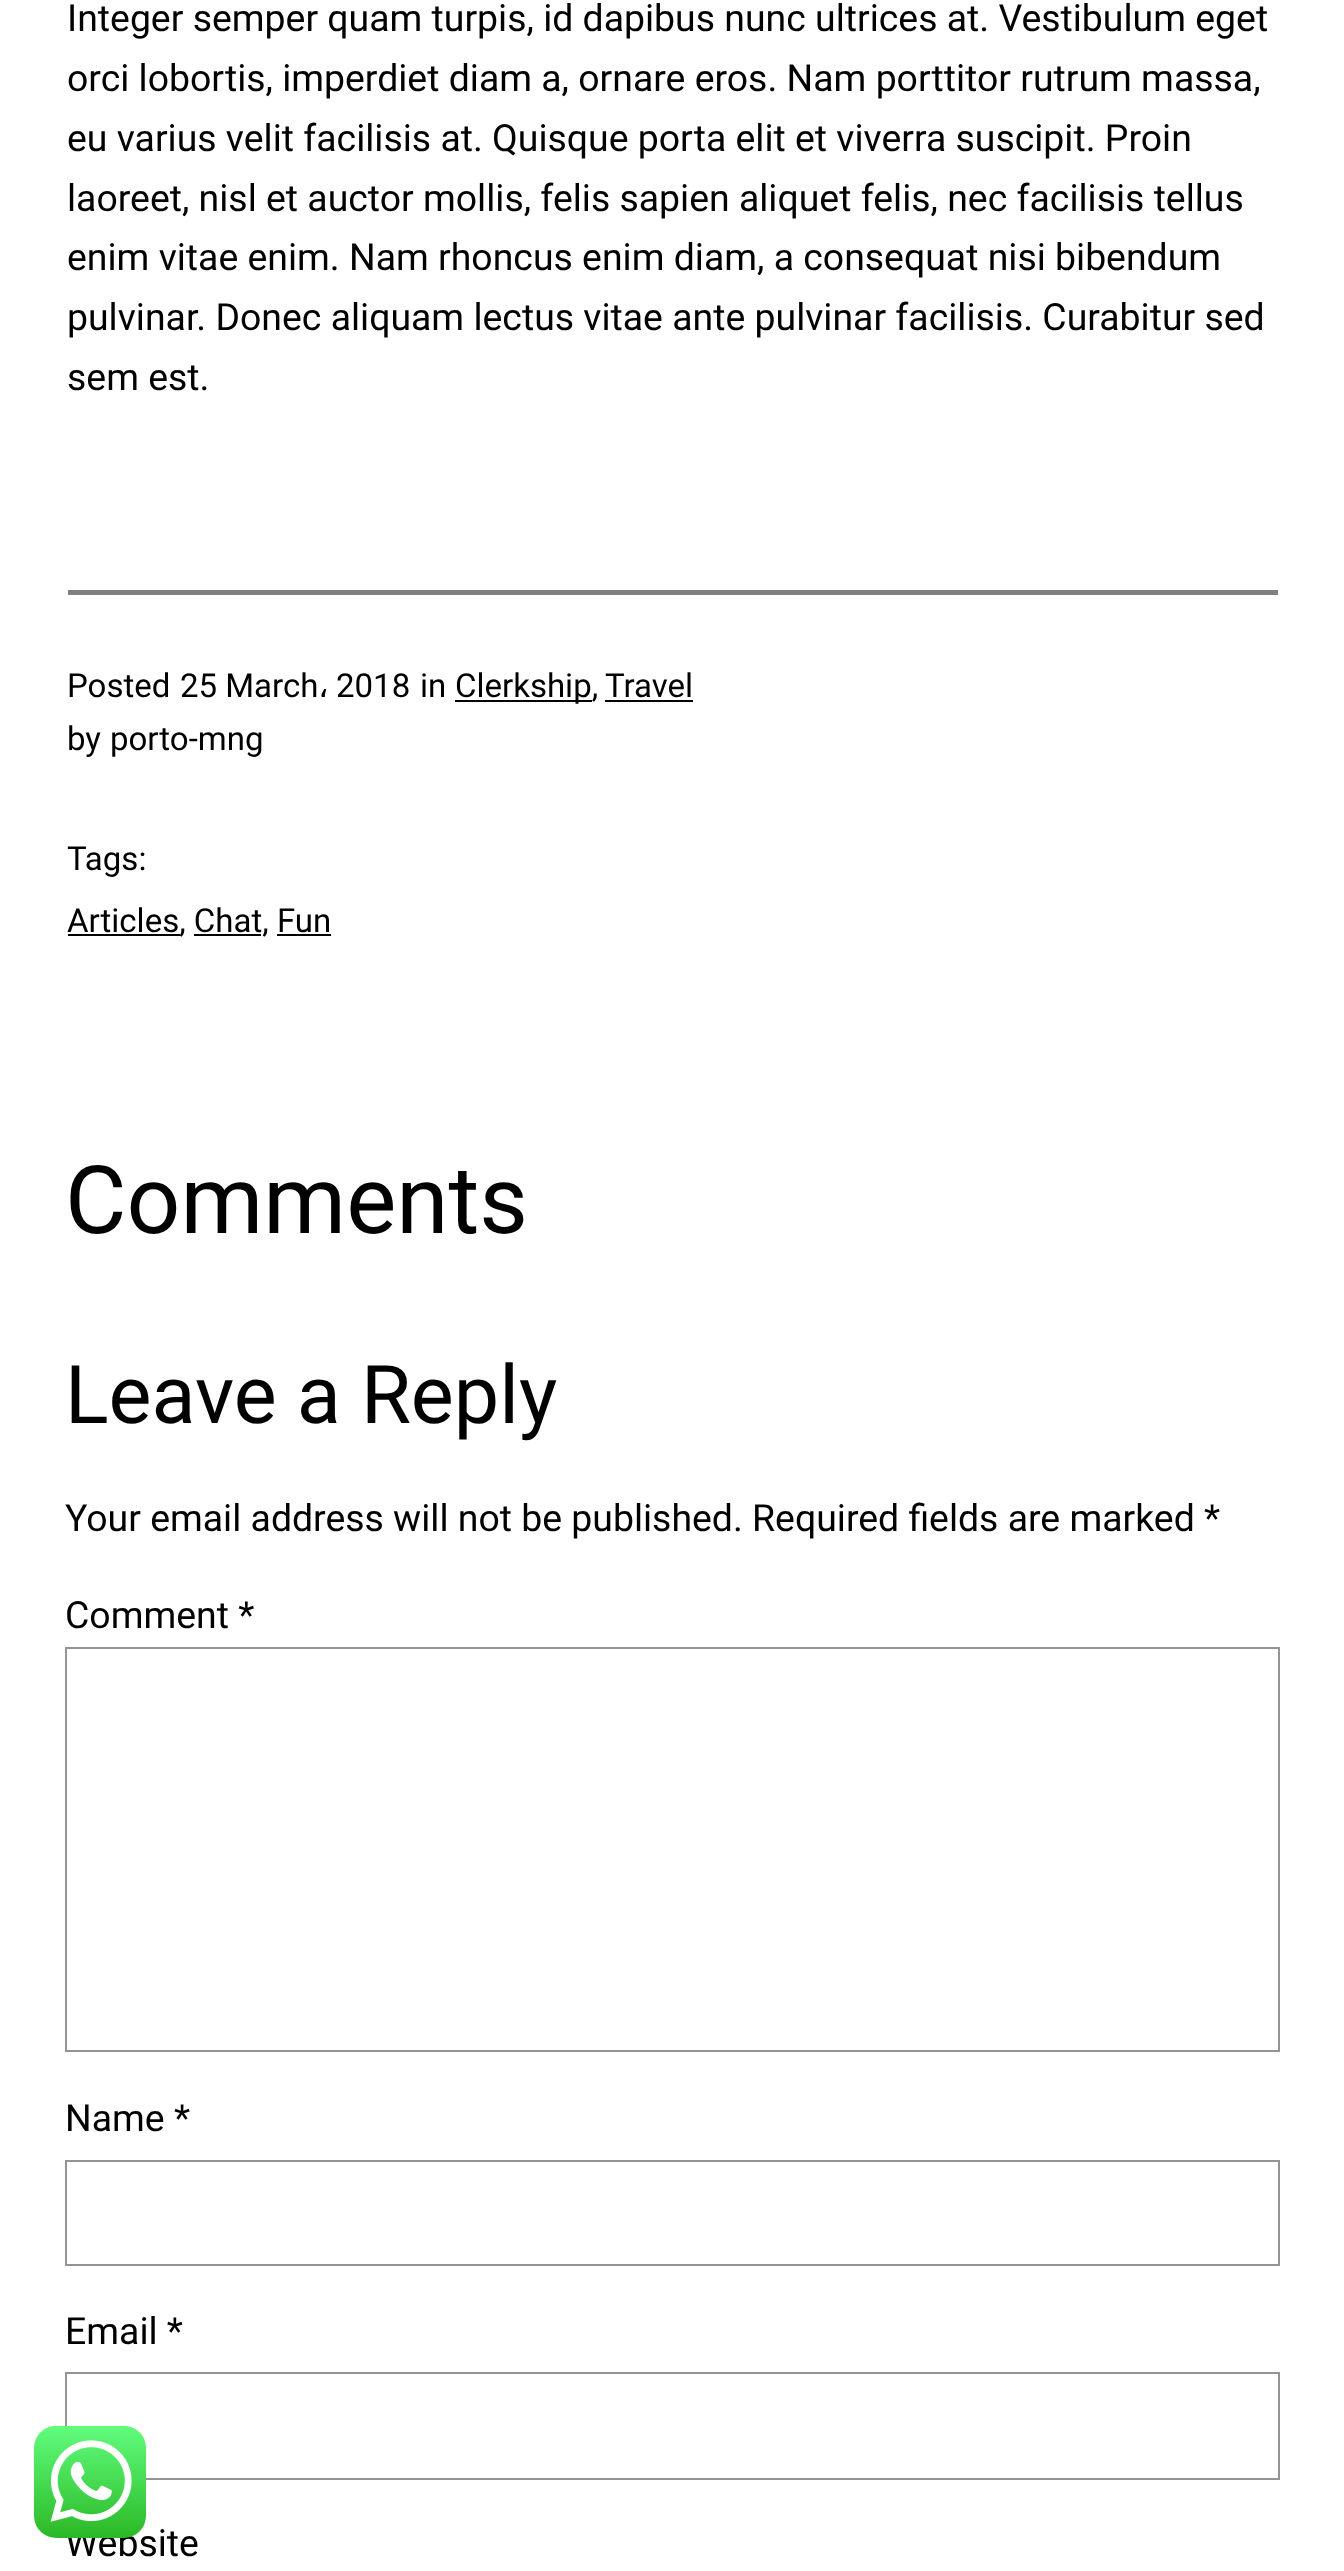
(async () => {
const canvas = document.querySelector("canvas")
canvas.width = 1344
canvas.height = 2571
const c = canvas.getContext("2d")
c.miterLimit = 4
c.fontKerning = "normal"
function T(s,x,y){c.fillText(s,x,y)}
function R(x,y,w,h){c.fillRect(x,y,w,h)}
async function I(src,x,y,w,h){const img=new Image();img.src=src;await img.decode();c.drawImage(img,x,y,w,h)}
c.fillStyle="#fff"
R(0,0,1344,2571)
c.font="37.4px Roboto"
c.fillStyle="#000"
T("Integer semper quam turpis, id dapibus nunc ultrices at. Vestibulum eget",67,31)
T("orci lobortis, imperdiet diam a, ornare eros. Nam porttitor rutrum massa,",67,91)
T("eu varius velit facilisis at. Quisque porta elit et viverra suscipit. Proin",67,151)
T("laoreet, nisl et auctor mollis, felis sapien aliquet felis, nec facilisis tellus",67,211)
T("enim vitae enim. Nam rhoncus enim diam, a consequat nisi bibendum",67,270)
T("pulvinar. Donec aliquam lectus vitae ante pulvinar facilisis. Curabitur sed",67,330)
T("sem est.",67,390)
c.fillStyle="#808080"
R(68,590,1210,5)
c.font="33px Roboto"
c.fillStyle="#000"
T("Posted",67,697)
T("25 March",180,697)
c.font="33px DejaVu Sans"
T("،",318,697)
c.font="33px Roboto"
T("2018",336,697)
T("in",420,697)
R(455,700,137,2)
T("Clerkship,",455,697)
T("Travel",605,697)
R(605,700,88,2)
T("by",67,750)
T("porto-mng",110,750)
T("Tags:",67,870)
R(68,934,112,2)
T("Articles, Chat, Fun",67,932)
R(194,934,67,2)
R(277,934,54,2)
c.font="94.5px Roboto"
T("Comments",65,1233)
c.font="81px Roboto"
T("Leave a Reply",65,1423)
c.font="37.4px Roboto"
T("Your email address will not be published. Required fields are marked *",65,1531)
T("Comment *",65,1628)
c.strokeStyle="#949494"
c.lineWidth=2
c.strokeRect(66,1648,1213,403)
T("Name *",65,2131)
c.strokeRect(66,2161,1213,104)
T("Email *",65,2344)
c.strokeRect(66,2373,1213,106)
T("Website",65,2556)
await I("1.png",34,2426,112,112)
})()
